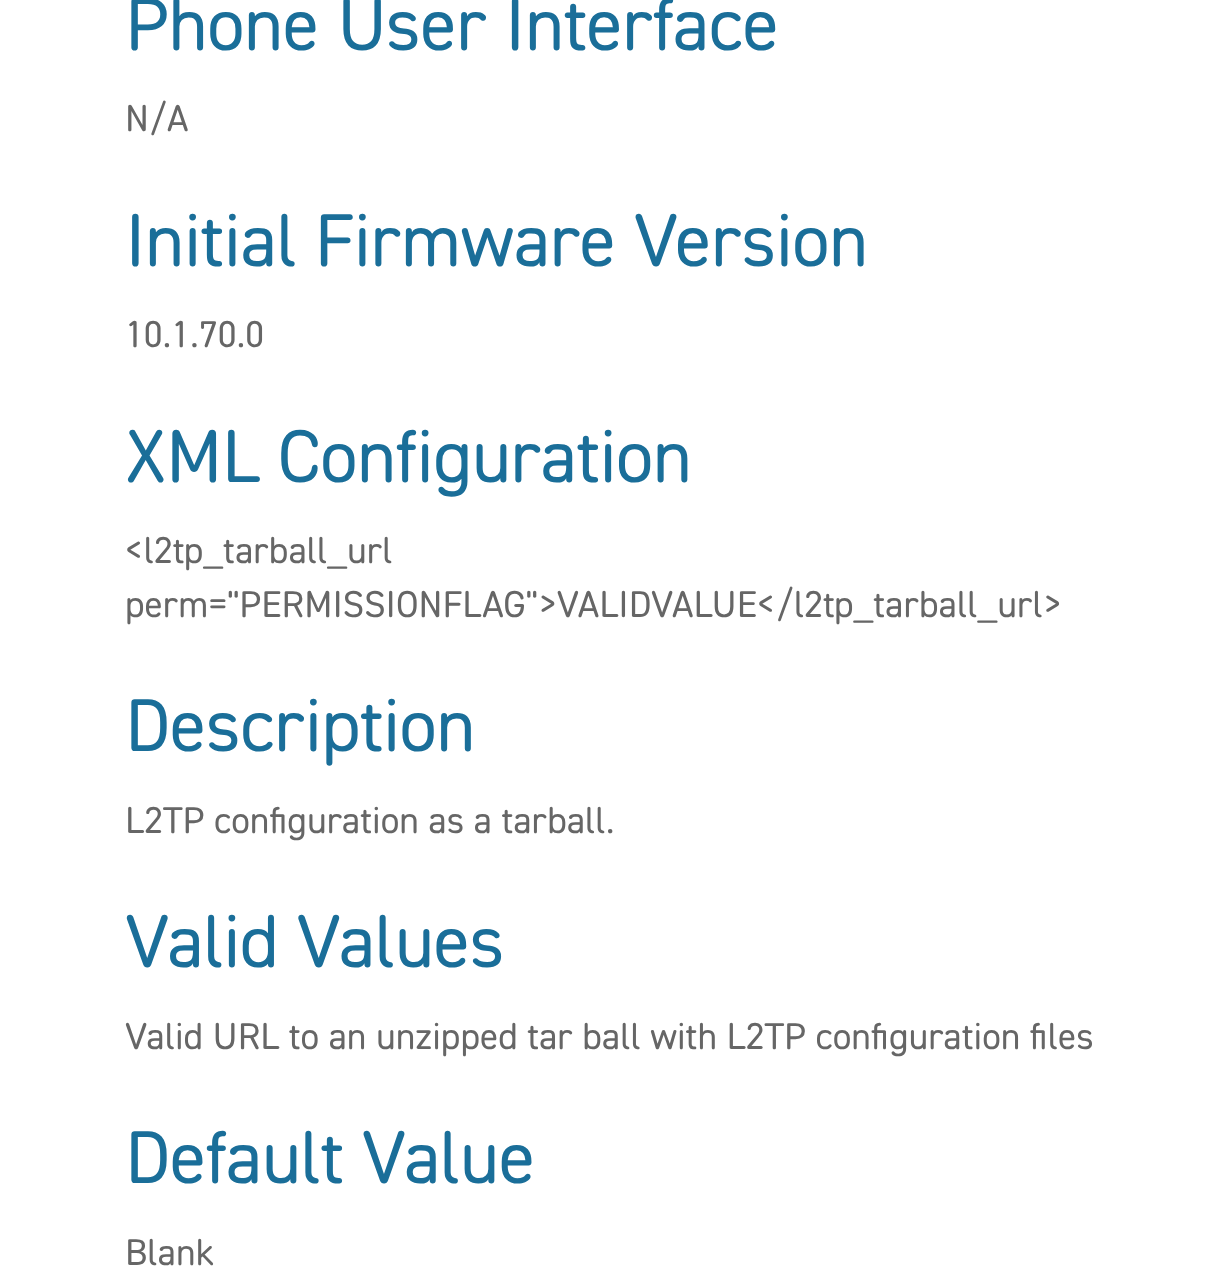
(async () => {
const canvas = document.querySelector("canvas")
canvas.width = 1207
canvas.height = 1268
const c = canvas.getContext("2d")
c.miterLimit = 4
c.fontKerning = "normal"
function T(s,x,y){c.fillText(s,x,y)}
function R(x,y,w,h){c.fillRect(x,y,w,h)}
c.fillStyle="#fff"
R(0,0,1207,1268)
c.letterSpacing="-0.6px"
c.font="75px 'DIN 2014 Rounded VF'"
c.fillStyle="#1a6e99"
T("Phone User Interface",125,50)
c.letterSpacing="0px"
c.font="37.5px 'DIN 2014 Rounded VF'"
c.fillStyle="#666"
T("N/A",125,131)
c.letterSpacing="-0.6px"
c.font="75px 'DIN 2014 Rounded VF'"
c.fillStyle="#1a6e99"
T("Initial Firmware Version",125,266)
c.letterSpacing="0px"
c.font="37.5px 'DIN 2014 Rounded VF'"
c.fillStyle="#666"
T("10.1.70.0",125,347)
c.letterSpacing="-0.6px"
c.font="75px 'DIN 2014 Rounded VF'"
c.fillStyle="#1a6e99"
T("XML Configuration",125,482)
c.letterSpacing="0px"
c.font="37.5px 'DIN 2014 Rounded VF'"
c.fillStyle="#666"
T("<l2tp_tarball_url",125,563)
T("perm=\"PERMISSIONFLAG\">VALIDVALUE<\/l2tp_tarball_url>",125,617)
c.letterSpacing="-0.6px"
c.font="75px 'DIN 2014 Rounded VF'"
c.fillStyle="#1a6e99"
T("Description",125,751)
c.letterSpacing="0px"
c.font="37.5px 'DIN 2014 Rounded VF'"
c.fillStyle="#666"
T("L2TP configuration as a tarball.",125,833)
c.letterSpacing="-0.6px"
c.font="75px 'DIN 2014 Rounded VF'"
c.fillStyle="#1a6e99"
T("Valid Values",125,967)
c.letterSpacing="0px"
c.font="37.5px 'DIN 2014 Rounded VF'"
c.fillStyle="#666"
T("Valid URL to an unzipped tar ball with L2TP configuration files",125,1049)
c.letterSpacing="-0.6px"
c.font="75px 'DIN 2014 Rounded VF'"
c.fillStyle="#1a6e99"
T("Default Value",125,1183)
c.letterSpacing="0px"
c.font="37.5px 'DIN 2014 Rounded VF'"
c.fillStyle="#666"
T("Blank",125,1265)
})()
